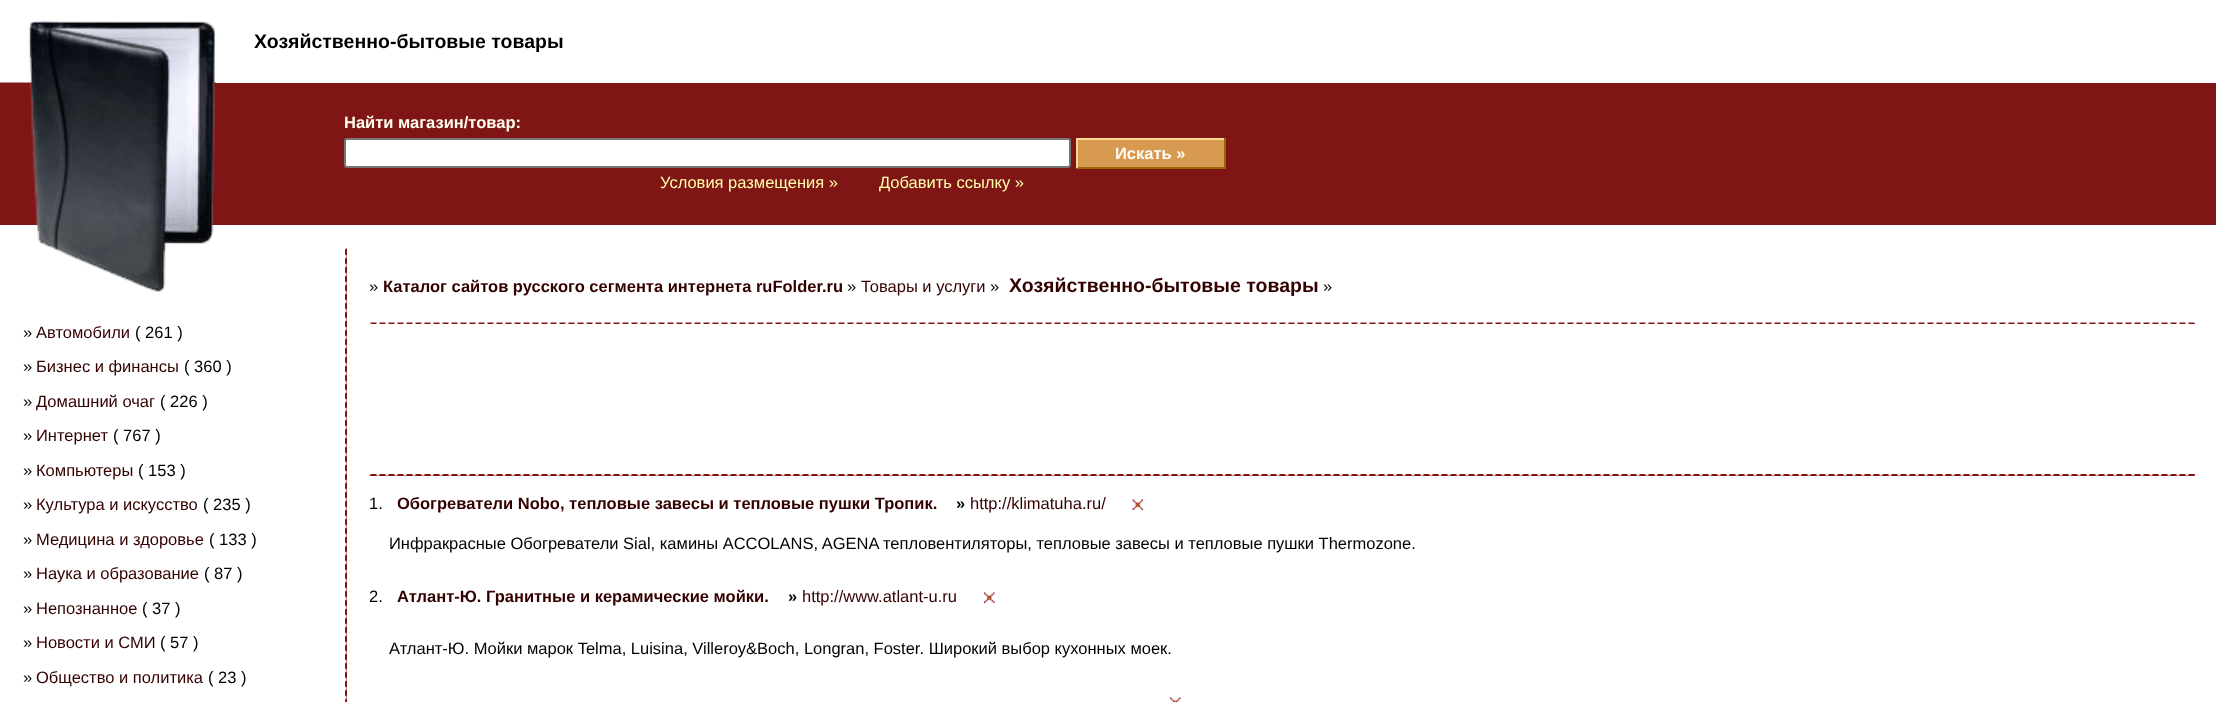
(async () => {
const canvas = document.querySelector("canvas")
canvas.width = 2216
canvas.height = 702
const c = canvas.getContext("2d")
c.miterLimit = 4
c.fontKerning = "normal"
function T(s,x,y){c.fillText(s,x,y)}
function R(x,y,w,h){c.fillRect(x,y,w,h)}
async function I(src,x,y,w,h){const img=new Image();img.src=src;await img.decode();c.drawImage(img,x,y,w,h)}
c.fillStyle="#fff"
R(0,0,2216,702)
await I("1.png",0,20,216,205)
c.font="bold 19.5px Liberation Sans"
c.fillStyle="#000"
T("Хозяйственно-бытовые товары",254,48)
c.fillStyle="#801515"
R(216,83,2000,142)
c.font="bold 16.5px Liberation Sans"
c.fillStyle="#fffff0"
T("Найти магазин/товар:",344,128)
c.fillStyle="#fff"
c.beginPath()
c.roundRect(345,139,725,28,2)
c.fill()
c.strokeStyle="#767676"
c.lineWidth=2
c.stroke()
c.fillStyle="#d89950"
R(1078,140,146,27)
c.fillStyle="#fcd891"
R(1076,138,150,2)
c.fillStyle="#976501"
R(1224,138,2,30)
R(1076,167,150,2)
c.fillStyle="#fcd891"
R(1076,138,2,30)
c.fillStyle="#fffff8"
T("Искать »",1115,159)
c.font="16.5px Liberation Sans"
c.fillStyle="#ffa"
T("Условия размещения »",660,188)
T("Добавить ссылку »",879,188)
await I("2.png",37,225,177,68)
c.fillStyle="#000"
T("»",23,338)
c.fillStyle="#300"
T("Автомобили",36,338)
c.fillStyle="#000"
T("( 261 )",135,338)
T("»",23,372)
c.fillStyle="#300"
T("Бизнес и финансы",36,372)
c.fillStyle="#000"
T("( 360 )",184,372)
T("»",23,407)
c.fillStyle="#300"
T("Домашний очаг",36,407)
c.fillStyle="#000"
T("( 226 )",160,407)
T("»",23,441)
c.fillStyle="#300"
T("Интернет",36,441)
c.fillStyle="#000"
T("( 767 )",113,441)
T("»",23,476)
c.fillStyle="#300"
T("Компьютеры",36,476)
c.fillStyle="#000"
T("( 153 )",138,476)
T("»",23,510)
c.fillStyle="#300"
T("Культура и искусство",36,510)
c.fillStyle="#000"
T("( 235 )",203,510)
T("»",23,545)
c.fillStyle="#300"
T("Медицина и здоровье",36,545)
c.fillStyle="#000"
T("( 133 )",209,545)
T("»",23,579)
c.fillStyle="#300"
T("Наука и образование",36,579)
c.fillStyle="#000"
T("( 87 )",204,579)
T("»",23,614)
c.fillStyle="#300"
T("Непознанное",36,614)
c.fillStyle="#000"
T("( 37 )",142,614)
T("»",23,648)
c.fillStyle="#300"
T("Новости и СМИ",36,648)
c.fillStyle="#000"
T("( 57 )",160,648)
T("»",23,683)
c.fillStyle="#300"
T("Общество и политика",36,683)
c.fillStyle="#000"
T("( 23 )",208,683)
c.fillStyle="#801515"
R(345,248,2,454)
await I("3.png",345,248,2,452)
c.fillStyle="#000"
T("»",369,292)
c.font="bold 16.5px Liberation Sans"
c.fillStyle="#300"
T("Каталог сайтов русского сегмента интернета ruFolder.ru",383,292)
c.font="16.5px Liberation Sans"
c.fillStyle="#000"
T("»",847,292)
c.fillStyle="#300"
T("Товары и услуги",861,292)
c.fillStyle="#000"
T("»",990,292)
c.font="bold 19.5px Liberation Sans"
c.fillStyle="#300"
T("Хозяйственно-бытовые товары",1009,292)
c.font="16.5px Liberation Sans"
c.fillStyle="#000"
T("»",1323,292)
c.fillStyle="#801515"
R(2194,323,1,1)
await I("4.png",369,322,1826,2)
R(369,474,1826,2)
await I("5.png",369,474,1826,2)
c.fillStyle="#000"
T("1.",369,509)
c.font="bold 16.5px Liberation Sans"
c.fillStyle="#300"
T("Обогреватели Nobo, тепловые завесы и тепловые пушки Тропик.",397,509)
c.fillStyle="#000"
T("»",956,509)
c.font="16.5px Liberation Sans"
c.fillStyle="#300"
T("http://klimatuha.ru/",970,509)
await I("6.png",1132,499,11,11)
c.fillStyle="#000"
T("Инфракрасные Обогреватели Sial, камины ACCOLANS, AGENA",389,549)
T("тепловентиляторы, тепловые завесы и тепловые пушки Thermozone.",883,549)
T("2.",369,602)
c.font="bold 16.5px Liberation Sans"
c.fillStyle="#300"
T("Атлант-Ю. Гранитные и керамические мойки.",397,602)
c.fillStyle="#000"
T("»",788,602)
c.font="16.5px Liberation Sans"
c.fillStyle="#300"
T("http://www.atlant-u.ru",802,602)
await I("7.png",984,592,11,11)
c.fillStyle="#000"
T("Атлант-Ю. Мойки марок Telma, Luisina, Villeroy&Boch, Longran, Foster. Широкий выбор кухонных моек.",389,654)
await I("8.png",1170,697,11,5)
})()
